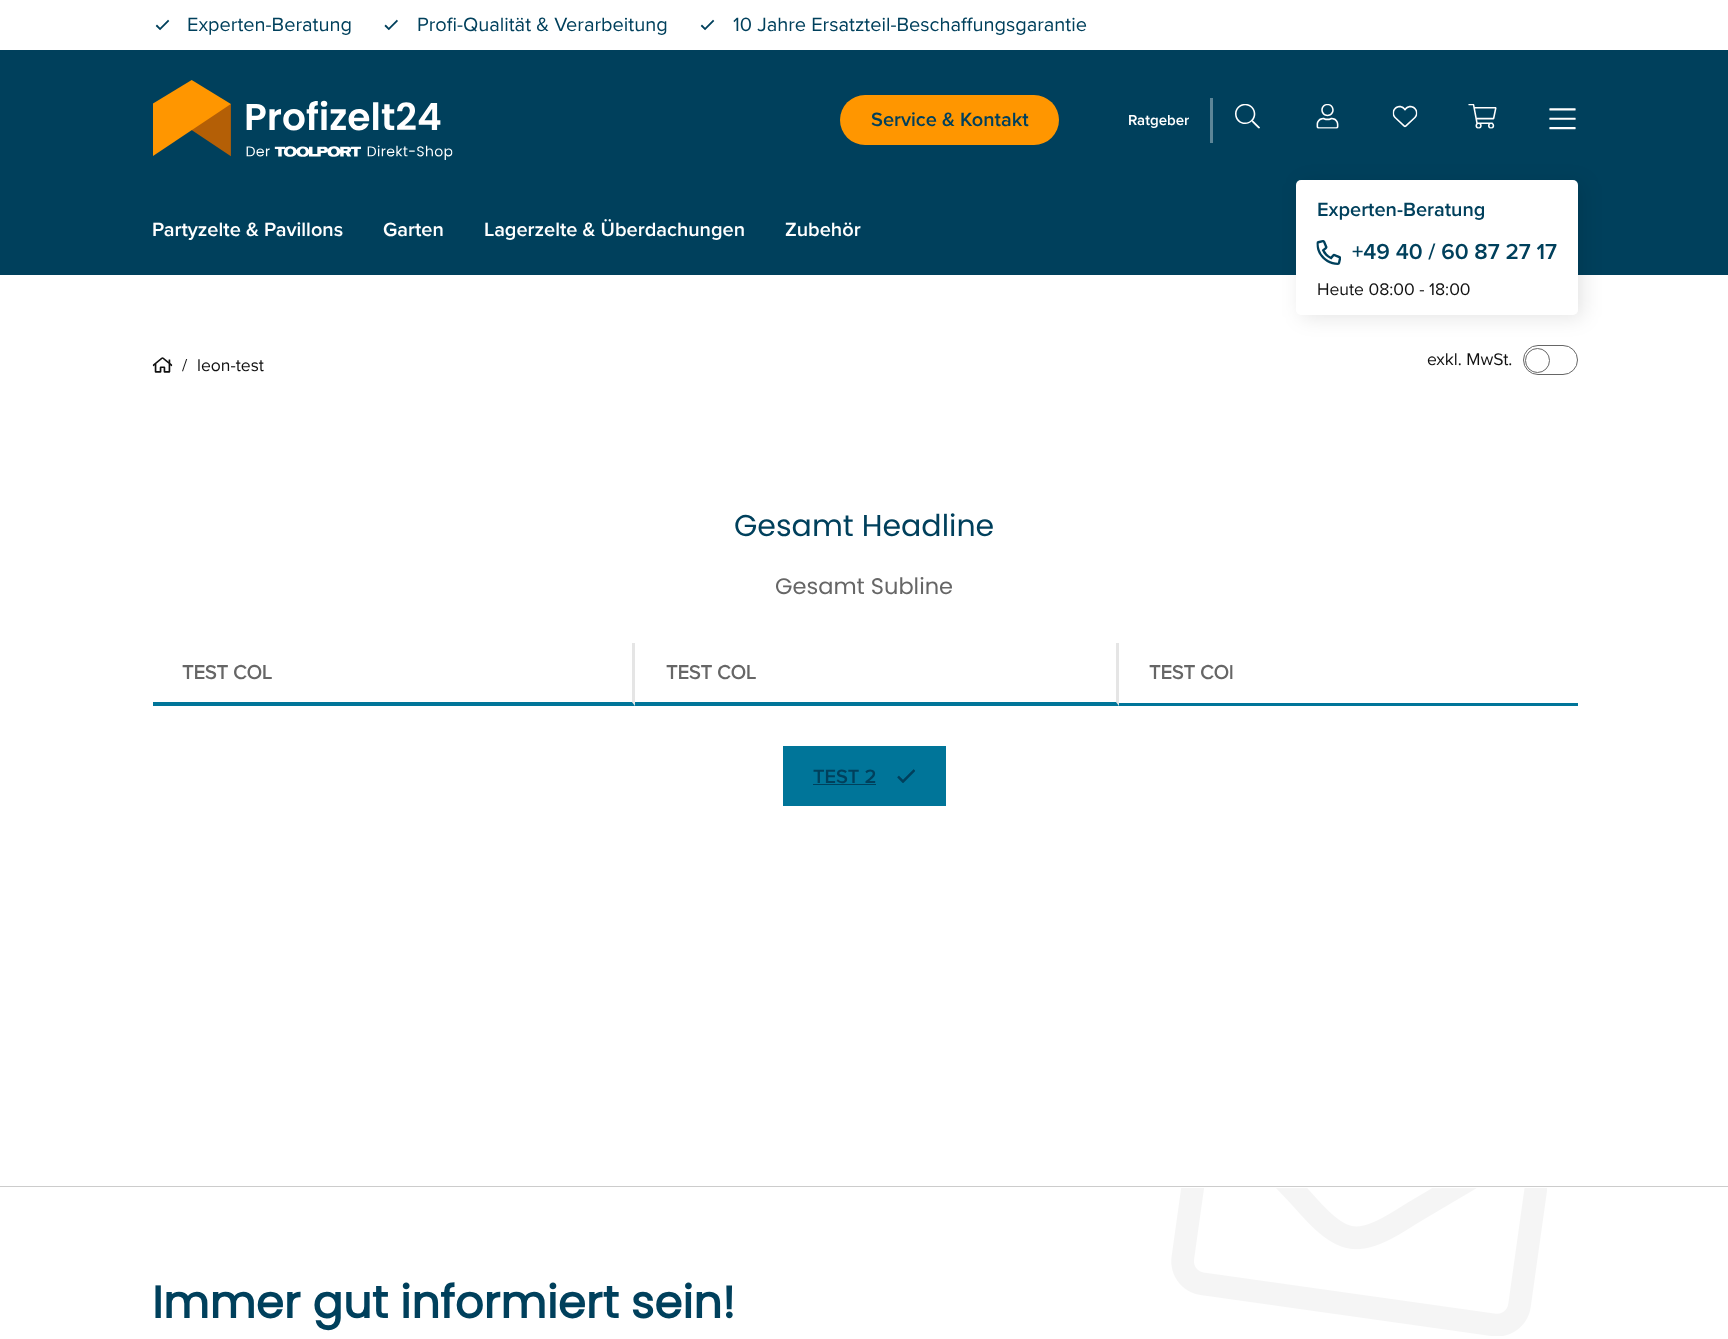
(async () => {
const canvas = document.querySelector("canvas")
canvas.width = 1728
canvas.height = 1339
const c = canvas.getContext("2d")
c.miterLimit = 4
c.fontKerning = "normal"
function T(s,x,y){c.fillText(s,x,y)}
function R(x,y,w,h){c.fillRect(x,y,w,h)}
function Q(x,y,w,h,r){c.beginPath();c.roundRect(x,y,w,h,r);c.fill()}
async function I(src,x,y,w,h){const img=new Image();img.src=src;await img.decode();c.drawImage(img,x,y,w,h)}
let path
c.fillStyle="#fff"
R(0,0,1728,1339)
await I("1.png",155,19,15,12)
c.font="20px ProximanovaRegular"
c.fillStyle="#00405c"
T("Experten-Beratung",187,31)
await I("2.png",384,19,14,12)
T("Profi-Qualität & Verarbeitung",417,31)
await I("1.png",700,19,15,12)
T("10 Jahre Ersatzteil-Beschaffungsgarantie",733,31)
R(0,50,1728,225)
await I("3.png",153,80,300,80)
c.fillStyle="#ff9600"
Q(840,95,219,50,25)
c.font="600 20px Proxima Nova"
c.fillStyle="#00405c"
T("Service & Kontakt",871,126)
c.font="600 15px Proxima Nova"
c.fillStyle="#fff"
T("Ratgeber",1128,125)
c.fillStyle="#5c8597"
R(1210,98,3,45)
await I("4.png",1235,104,25,25)
await I("5.png",1316,104,23,25)
await I("6.png",1392,105,26,23)
await I("7.png",1468,104,29,25)
await I("8.png",1549,108,27,22)
c.font="600 20px Proxima Nova"
c.fillStyle="#fff"
T("Partyzelte & Pavillons",152,236)
T("Garten",383,236)
T("Lagerzelte & Überdachungen",484,236)
T("Zubehör",785,236)
c.beginPath()
c.roundRect(1523.5,345.5,54,29,14.5)
c.strokeStyle="#666"
c.stroke()
c.beginPath()
c.arc(1537.5,360.5,12,0,7)
c.stroke()
c.fillStyle="#0000001a"
c.filter="blur(10px)"
c.beginPath()
c.roundRect(1301,183,282,135,5)
c.fill()
c.filter="none"
c.fillStyle="#fff"
Q(1296,180,282,135,5)
c.fillStyle="#00405c"
T("Experten-Beratung",1317,216)
await I("9.png",1316,240,25,25)
c.font="600 22.5px Proxima Nova"
T("+49 40 / 60 87 27 17",1352,259)
c.font="17.5px ProximanovaRegular"
c.fillStyle="#111"
T("Heute 08:00 - 18:00",1317,295)
await I("10.png",152,357,21,16)
T("/",182,371)
T("leon-test",197,371)
T("exkl. MwSt.",1427,365)
c.font="30px Poppins"
c.fillStyle="#00405c"
T("Gesamt Headline",734,536)
c.font="22.5px Poppins"
c.fillStyle="#666"
T("Gesamt Subline",775,594)
c.save()
c.beginPath()
c.rect(153,643,1425,63)
c.clip()
c.fillStyle="#e5e5e5"
path = new Path2D("M635 642v64l-3-4v-60z")
c.fill(path)
c.fillStyle="#007599"
path = new Path2D("M635 706h-483v-4h480z")
c.fill(path)
c.restore()
c.font="bold 20px ProximanovaRegular"
T("TEST COL",182,679)
c.save()
c.beginPath()
c.rect(153,643,1425,63)
c.clip()
c.fillStyle="#e5e5e5"
path = new Path2D("M1119 642v64l-3-4v-60z")
c.fill(path)
c.restore()
c.fillStyle="#007599"
path = new Path2D("M1119 706h-484v-4h481z")
c.fill(path)
c.fillStyle="#666"
T("TEST COL",666,679)
c.fillStyle="#007599"
R(1119,703,459,3)
c.fillStyle="#666"
T("TEST COl",1149,679)
c.fillStyle="#007599"
R(783,746,163,60)
c.font="600 20px Proxima Nova"
c.fillStyle="#00405c"
T("TEST 2",813,783)
R(813,784,63,1)
await I("11.png",897,769,18,14)
c.fillStyle="#ccc"
R(0,1186,1728,1)
c.font="bold 45px Poppins"
c.fillStyle="#00405c"
T("Immer gut informiert sein!",152,1318)
await I("12.png",1171,1188,376,148)
})()
